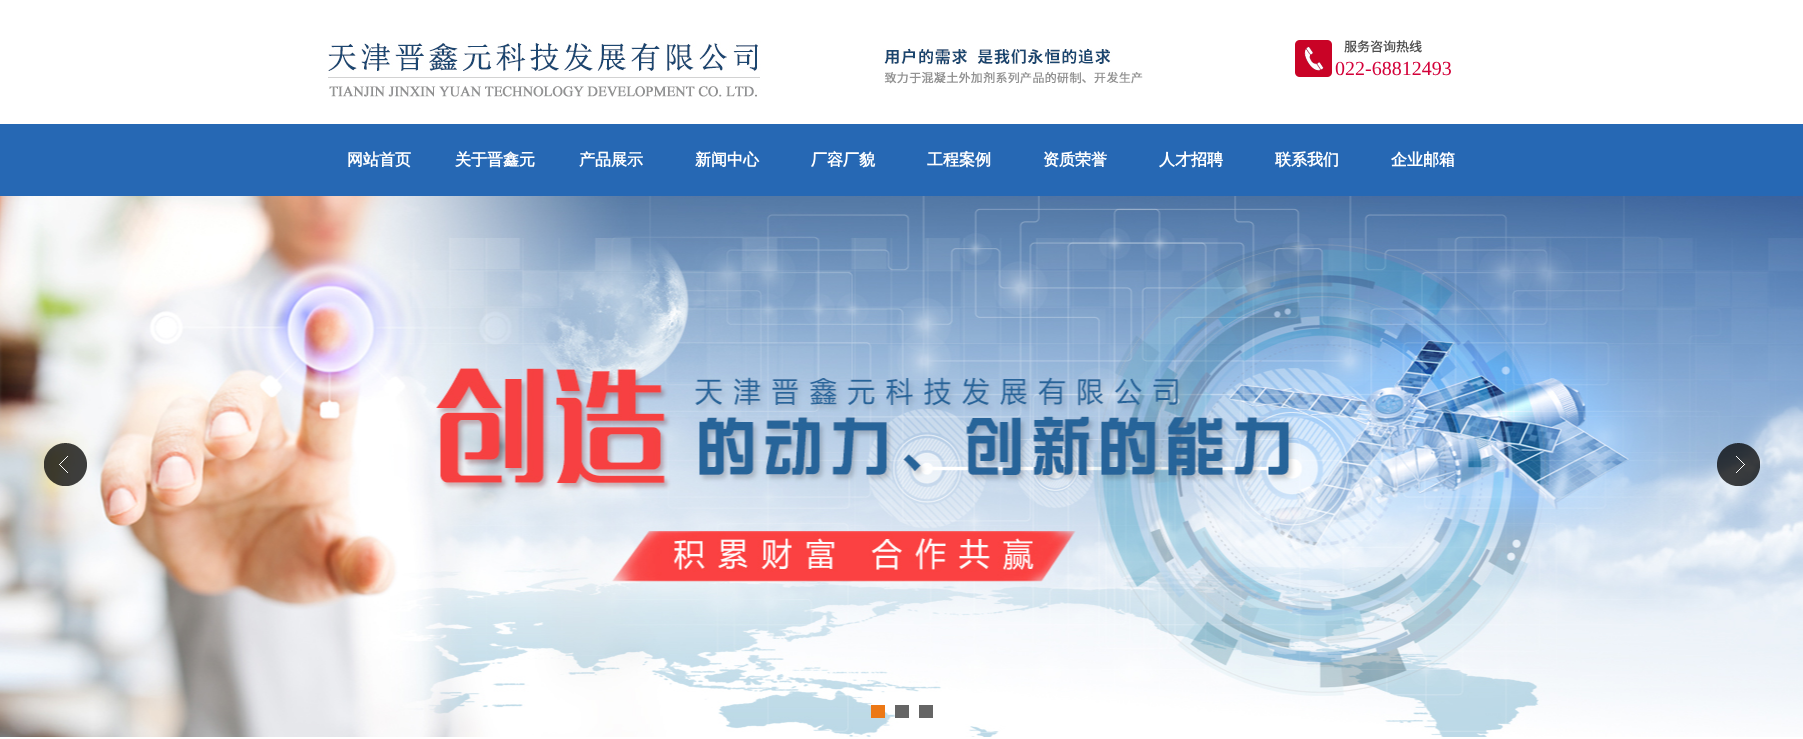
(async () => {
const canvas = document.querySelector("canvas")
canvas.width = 1803
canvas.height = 739
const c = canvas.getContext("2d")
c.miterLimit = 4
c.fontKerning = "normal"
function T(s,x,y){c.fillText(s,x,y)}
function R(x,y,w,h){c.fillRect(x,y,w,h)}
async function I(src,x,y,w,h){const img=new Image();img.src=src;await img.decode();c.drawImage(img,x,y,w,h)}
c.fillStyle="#fff"
R(0,0,1803,739)
await I("1.png",328,41,815,56)
await I("2.png",1295,40,127,37)
c.font="20px Liberation Serif"
c.fillStyle="#d30039"
T("022-68812493",1335,75)
c.fillStyle="#2668b4"
R(0,124,1803,72)
c.font="bold 16px WenQuanYi Zen Hei"
c.fillStyle="#fff"
T("网站首页",347,165)
T("关于晋鑫元",455,165)
T("产品展示",579,165)
T("新闻中心",695,165)
T("厂容厂貌",811,165)
T("工程案例",927,165)
T("资质荣誉",1043,165)
T("人才招聘",1159,165)
T("联系我们",1275,165)
T("企业邮箱",1391,165)
await I("3.png",0,196,1803,541)
await I("4.png",44,443,43,43)
await I("5.png",1717,443,43,43)
c.fillStyle="#ec7815"
R(871,705,14,13)
c.fillStyle="#656565"
R(895,705,14,13)
R(919,705,14,13)
})()
